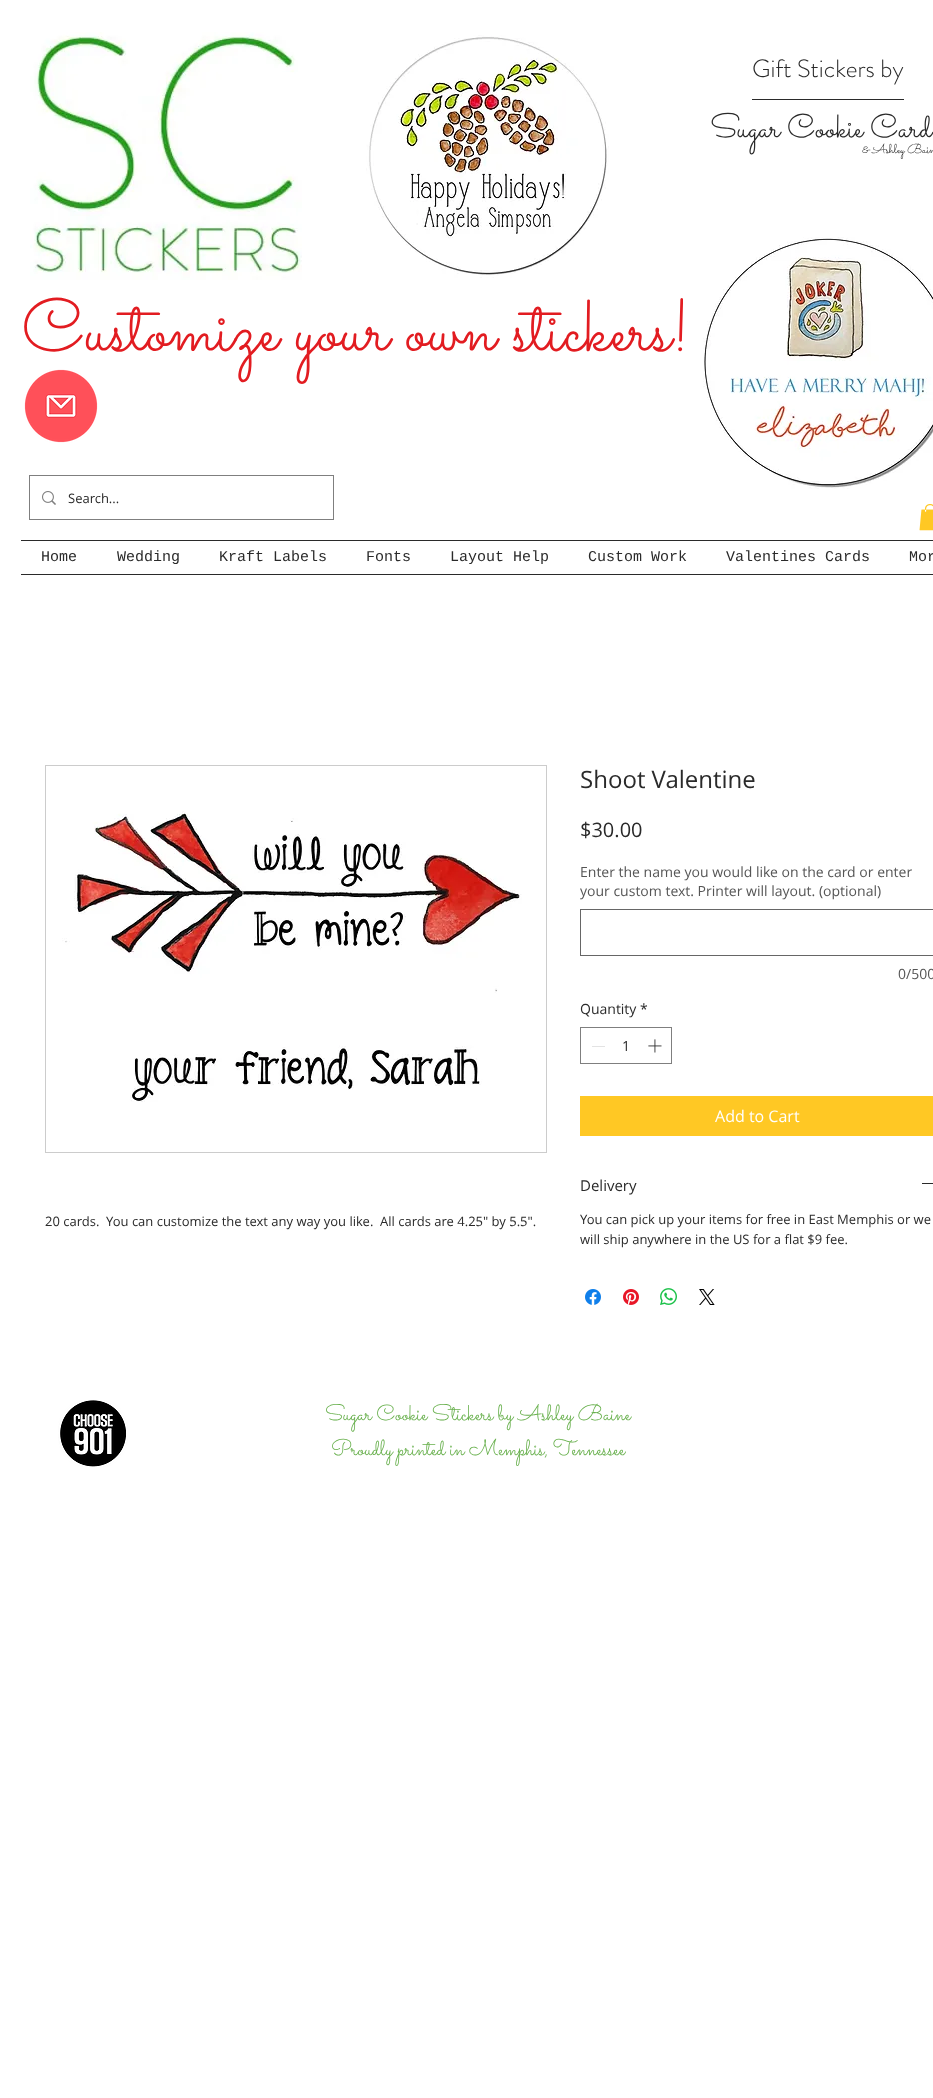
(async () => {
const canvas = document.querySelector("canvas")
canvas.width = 933
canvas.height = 2098
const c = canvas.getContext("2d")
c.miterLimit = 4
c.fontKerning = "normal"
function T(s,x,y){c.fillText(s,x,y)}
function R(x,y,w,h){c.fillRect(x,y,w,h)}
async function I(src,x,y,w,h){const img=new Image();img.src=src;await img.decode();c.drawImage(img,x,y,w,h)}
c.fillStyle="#fff"
R(0,0,933,2098)
await I("1.png",30,32,272,248)
await I("2.png",366,35,243,243)
c.font="300 25px 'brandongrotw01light'"
c.fillStyle="#2a2a2a"
T("Gift Stickers by",752,77)
R(752,99,152,1)
c.font="33px Sacramento"
T("Sugar Cookie Card",710,137)
c.font="13px Sacramento"
T("& Ashley Bain",862,153)
await I("4.png",24,369,74,74)
c.font="74px Sacramento"
c.fillStyle="#e21c21"
T("Customize your own stickers!",22,350)
await I("3.png",683,237,250,252)
c.strokeStyle="#7f7f7f"
c.strokeRect(29.5,475.5,304,44)
await I("5.png",42,491,14,14)
c.font="13px Open Sans"
c.fillStyle="#2a2a2a"
T("Search...",68,503)
await I("6.png",919,504,14,27)
R(21,540,912,1)
R(21,574,912,1)
c.font="15px Liberation Mono"
T("Home",41,561)
T("Wedding",117,561)
T("Kraft Labels",219,561)
T("Fonts",366,561)
T("Layout Help",450,561)
T("Custom Work",588,561)
T("Valentines Cards",726,561)
T("Mor",909,561)
c.strokeStyle="#ccc"
c.strokeRect(45.5,765.5,501,387)
await I("7.png",62,811,460,291)
c.font="13px Open Sans"
T("20 cards.  You can customize the text any way you like.  All cards are 4.25\" by 5.5\".",45,1226)
c.font="24px Open Sans"
T("Shoot Valentine",580,788)
c.font="20px Open Sans"
T("$30.00",580,837)
c.font="14px Open Sans"
c.fillStyle="#555"
T("Enter the name you would like on the card or enter",580,877)
T("your custom text. Printer will layout. (optional)",580,896)
c.strokeStyle="#666"
c.strokeRect(580.5,909.5,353,46)
T("0/500",898,979)
c.fillStyle="#2a2a2a"
T("Quantity",580,1014)
T("*",640,1014)
c.strokeStyle="#7f7f7f"
c.strokeRect(580.5,1027.5,91,36)
c.fillStyle="#e3e3e3"
R(592,1046,13,1)
c.fillStyle="#2a2a2a"
T("1",622,1051)
await I("8.png",648,1039,14,14)
c.fillStyle="#ffc824"
R(580,1096,353,40)
c.font="16px Open Sans"
c.fillStyle="#fff"
T("Add to Cart",715,1122)
c.font="15px Open Sans"
c.fillStyle="#2a2a2a"
T("Delivery",580,1191)
R(922,1183,11,1)
c.font="13px Open Sans"
T("You can pick up your items for free in East Memphis or we",580,1224)
T("will ship anywhere in the US for a flat $9 fee.",580,1244)
await I("9.png",585,1289,16,16)
await I("10.png",623,1289,16,16)
await I("11.png",660,1288,17,17)
await I("12.png",699,1289,16,16)
await I("13.png",58,1400,70,67)
c.font="22px Sacramento"
c.fillStyle="#68b04d"
T("Sugar Cookie Stickers by Ashley Baine",325,1420)
T("Proudly printed in Memphis, Tennessee",331,1455)
})()
